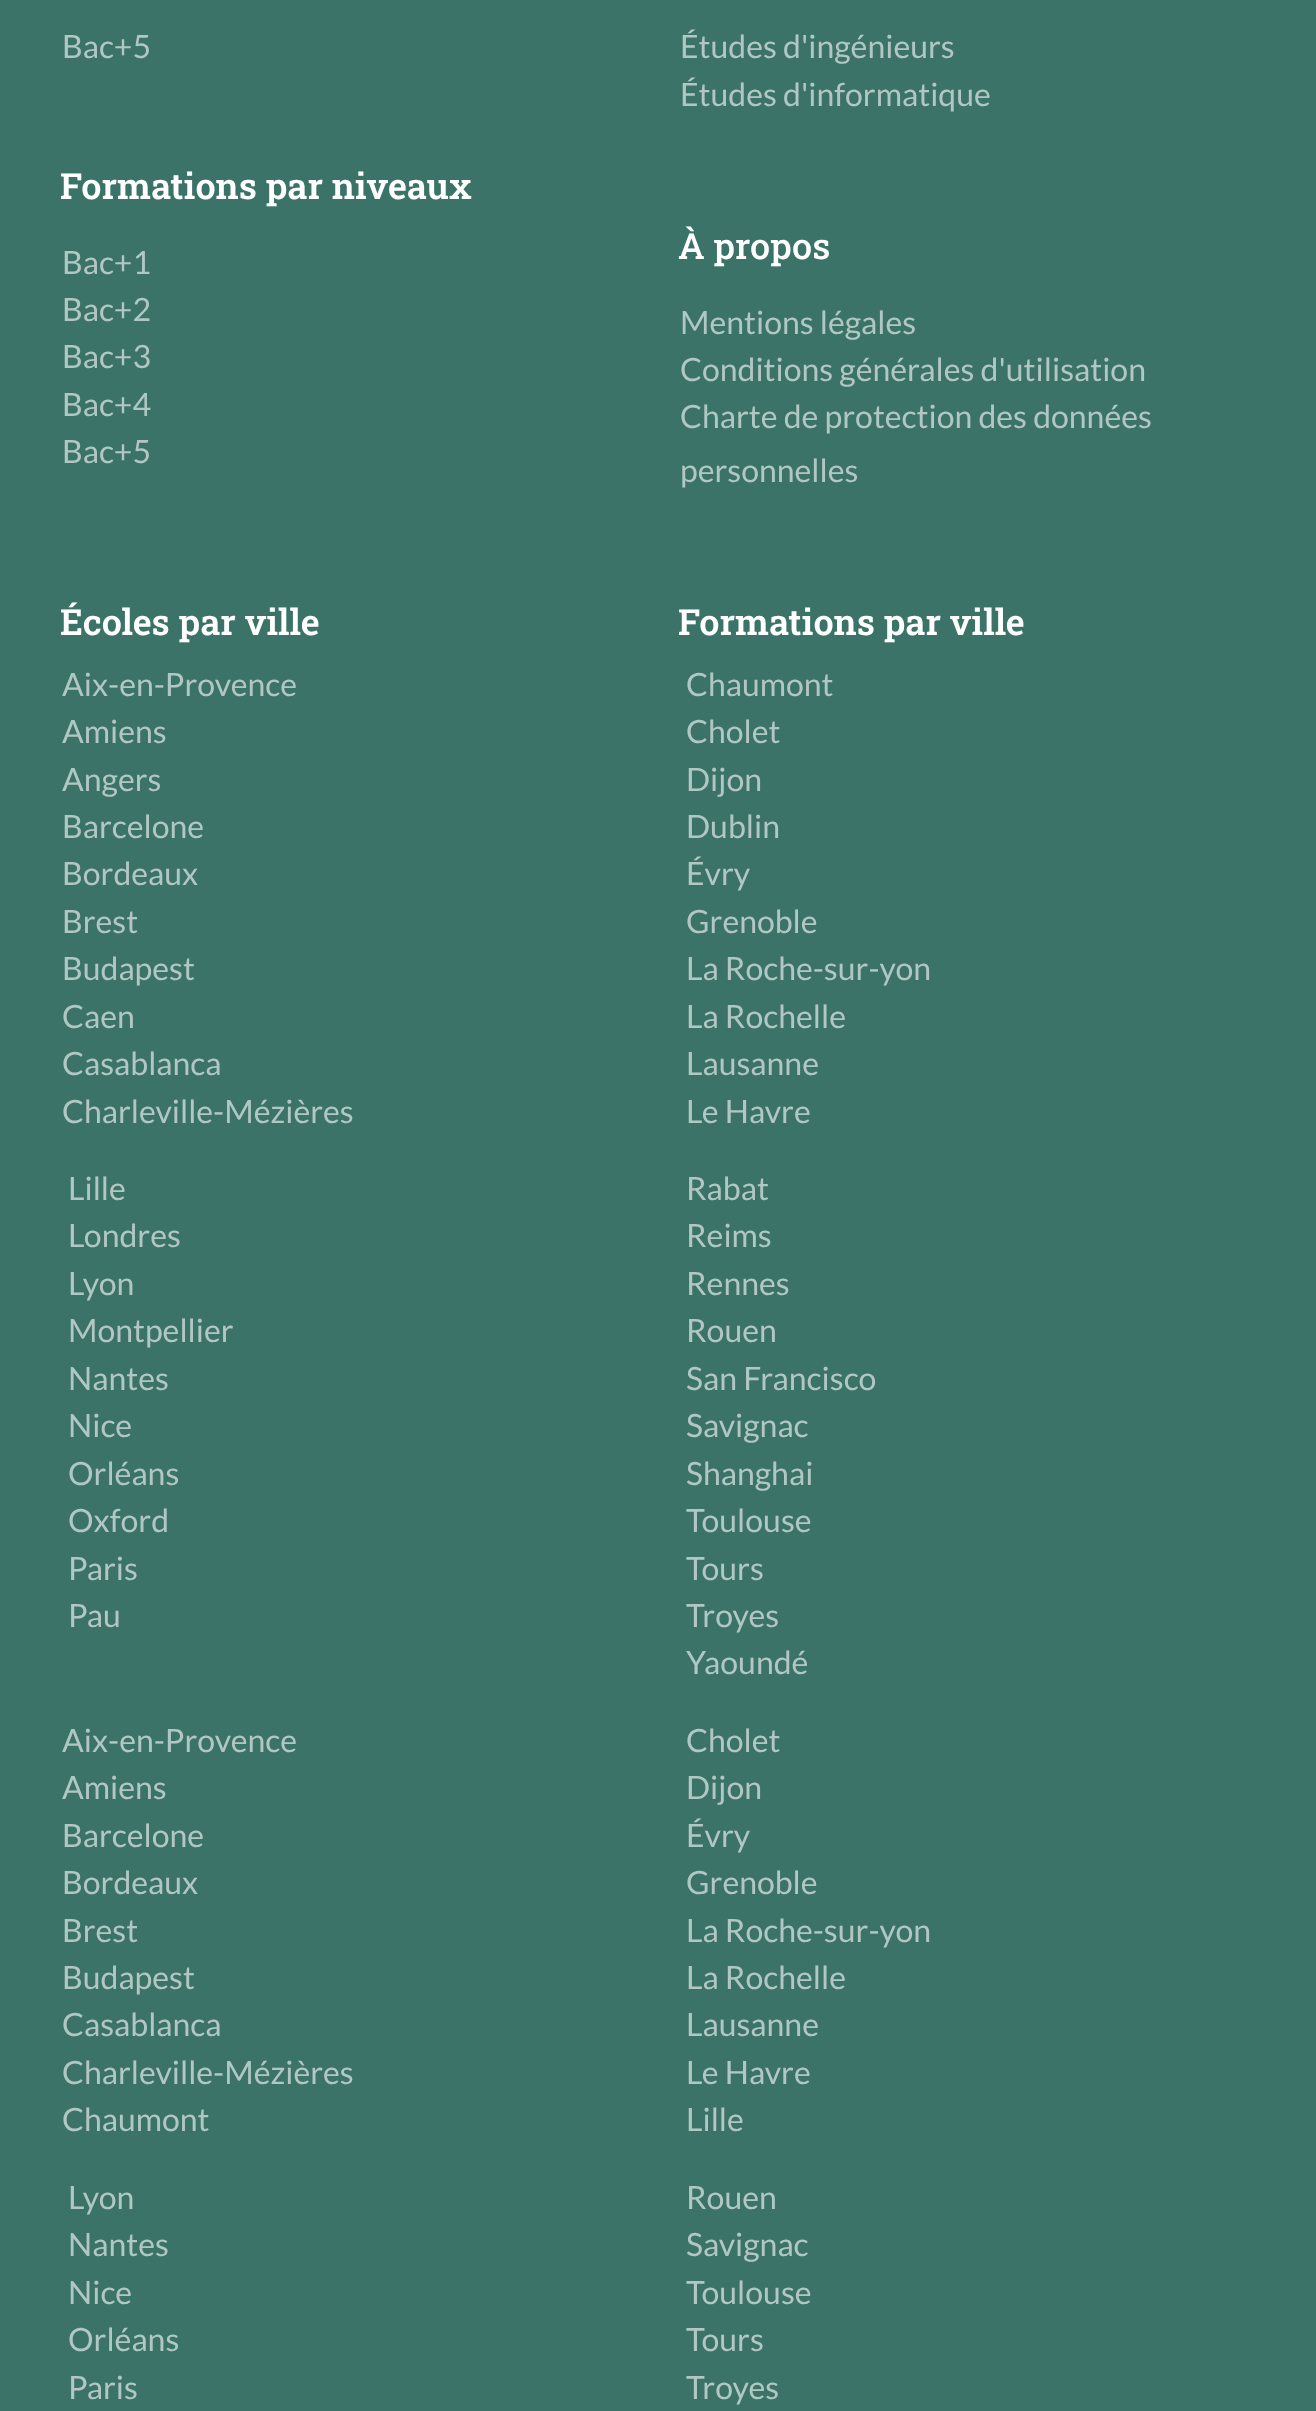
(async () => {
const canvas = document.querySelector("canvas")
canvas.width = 1316
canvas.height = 2411
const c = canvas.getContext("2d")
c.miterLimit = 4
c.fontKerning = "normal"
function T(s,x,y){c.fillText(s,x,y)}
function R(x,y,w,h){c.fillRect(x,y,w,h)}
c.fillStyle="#3b7368"
R(0,0,1316,2411)
c.font="32px Lato"
c.fillStyle="#b1c7c3"
T("Bac+5",62,58)
T("Études d'ingénieurs",680,58)
T("Études d'informatique",680,106)
c.font="600 36px Roboto Slab"
c.fillStyle="#fff"
T("Formations par niveaux",60,199)
c.font="32px Lato"
c.fillStyle="#b1c7c3"
T("Bac+1",62,274)
T("Bac+2",62,321)
T("Bac+3",62,368)
T("Bac+4",62,416)
T("Bac+5",62,463)
c.font="500 36px Roboto Slab"
c.fillStyle="#fff"
T("À propos",678,259)
c.font="32px Lato"
c.fillStyle="#b1c7c3"
T("Mentions légales",680,334)
T("Conditions générales d'utilisation",680,381)
T("Charte de protection des données",680,428)
T("personnelles",680,482)
c.font="600 36px Roboto Slab"
c.fillStyle="#fff"
T("Écoles par ville",60,635)
T("Formations par ville",678,635)
c.font="32px Lato"
c.fillStyle="#b1c7c3"
T("Aix-en-Provence",62,696)
T("Amiens",62,743)
T("Angers",62,791)
T("Barcelone",62,838)
T("Bordeaux",62,885)
T("Brest",62,933)
T("Budapest",62,980)
T("Caen",62,1028)
T("Casablanca",62,1075)
T("Charleville-Mézières",62,1123)
T("Chaumont",686,696)
T("Cholet",686,743)
T("Dijon",686,791)
T("Dublin",686,838)
T("Évry",686,885)
T("Grenoble",686,933)
T("La Roche-sur-yon",686,980)
T("La Rochelle",686,1028)
T("Lausanne",686,1075)
T("Le Havre",686,1123)
T("Lille",68,1200)
T("Londres",68,1247)
T("Lyon",68,1295)
T("Montpellier",68,1342)
T("Nantes",68,1390)
T("Nice",68,1437)
T("Orléans",68,1485)
T("Oxford",68,1532)
T("Paris",68,1580)
T("Pau",68,1627)
T("Rabat",686,1200)
T("Reims",686,1247)
T("Rennes",686,1295)
T("Rouen",686,1342)
T("San Francisco",686,1390)
T("Savignac",686,1437)
T("Shanghai",686,1485)
T("Toulouse",686,1532)
T("Tours",686,1580)
T("Troyes",686,1627)
T("Yaoundé",686,1674)
T("Aix-en-Provence",62,1752)
T("Amiens",62,1799)
T("Barcelone",62,1847)
T("Bordeaux",62,1894)
T("Brest",62,1942)
T("Budapest",62,1989)
T("Casablanca",62,2036)
T("Charleville-Mézières",62,2084)
T("Chaumont",62,2131)
T("Cholet",686,1752)
T("Dijon",686,1799)
T("Évry",686,1847)
T("Grenoble",686,1894)
T("La Roche-sur-yon",686,1942)
T("La Rochelle",686,1989)
T("Lausanne",686,2036)
T("Le Havre",686,2084)
T("Lille",686,2131)
T("Lyon",68,2209)
T("Nantes",68,2256)
T("Nice",68,2304)
T("Orléans",68,2351)
T("Paris",68,2399)
T("Rouen",686,2209)
T("Savignac",686,2256)
T("Toulouse",686,2304)
T("Tours",686,2351)
T("Troyes",686,2399)
})()
